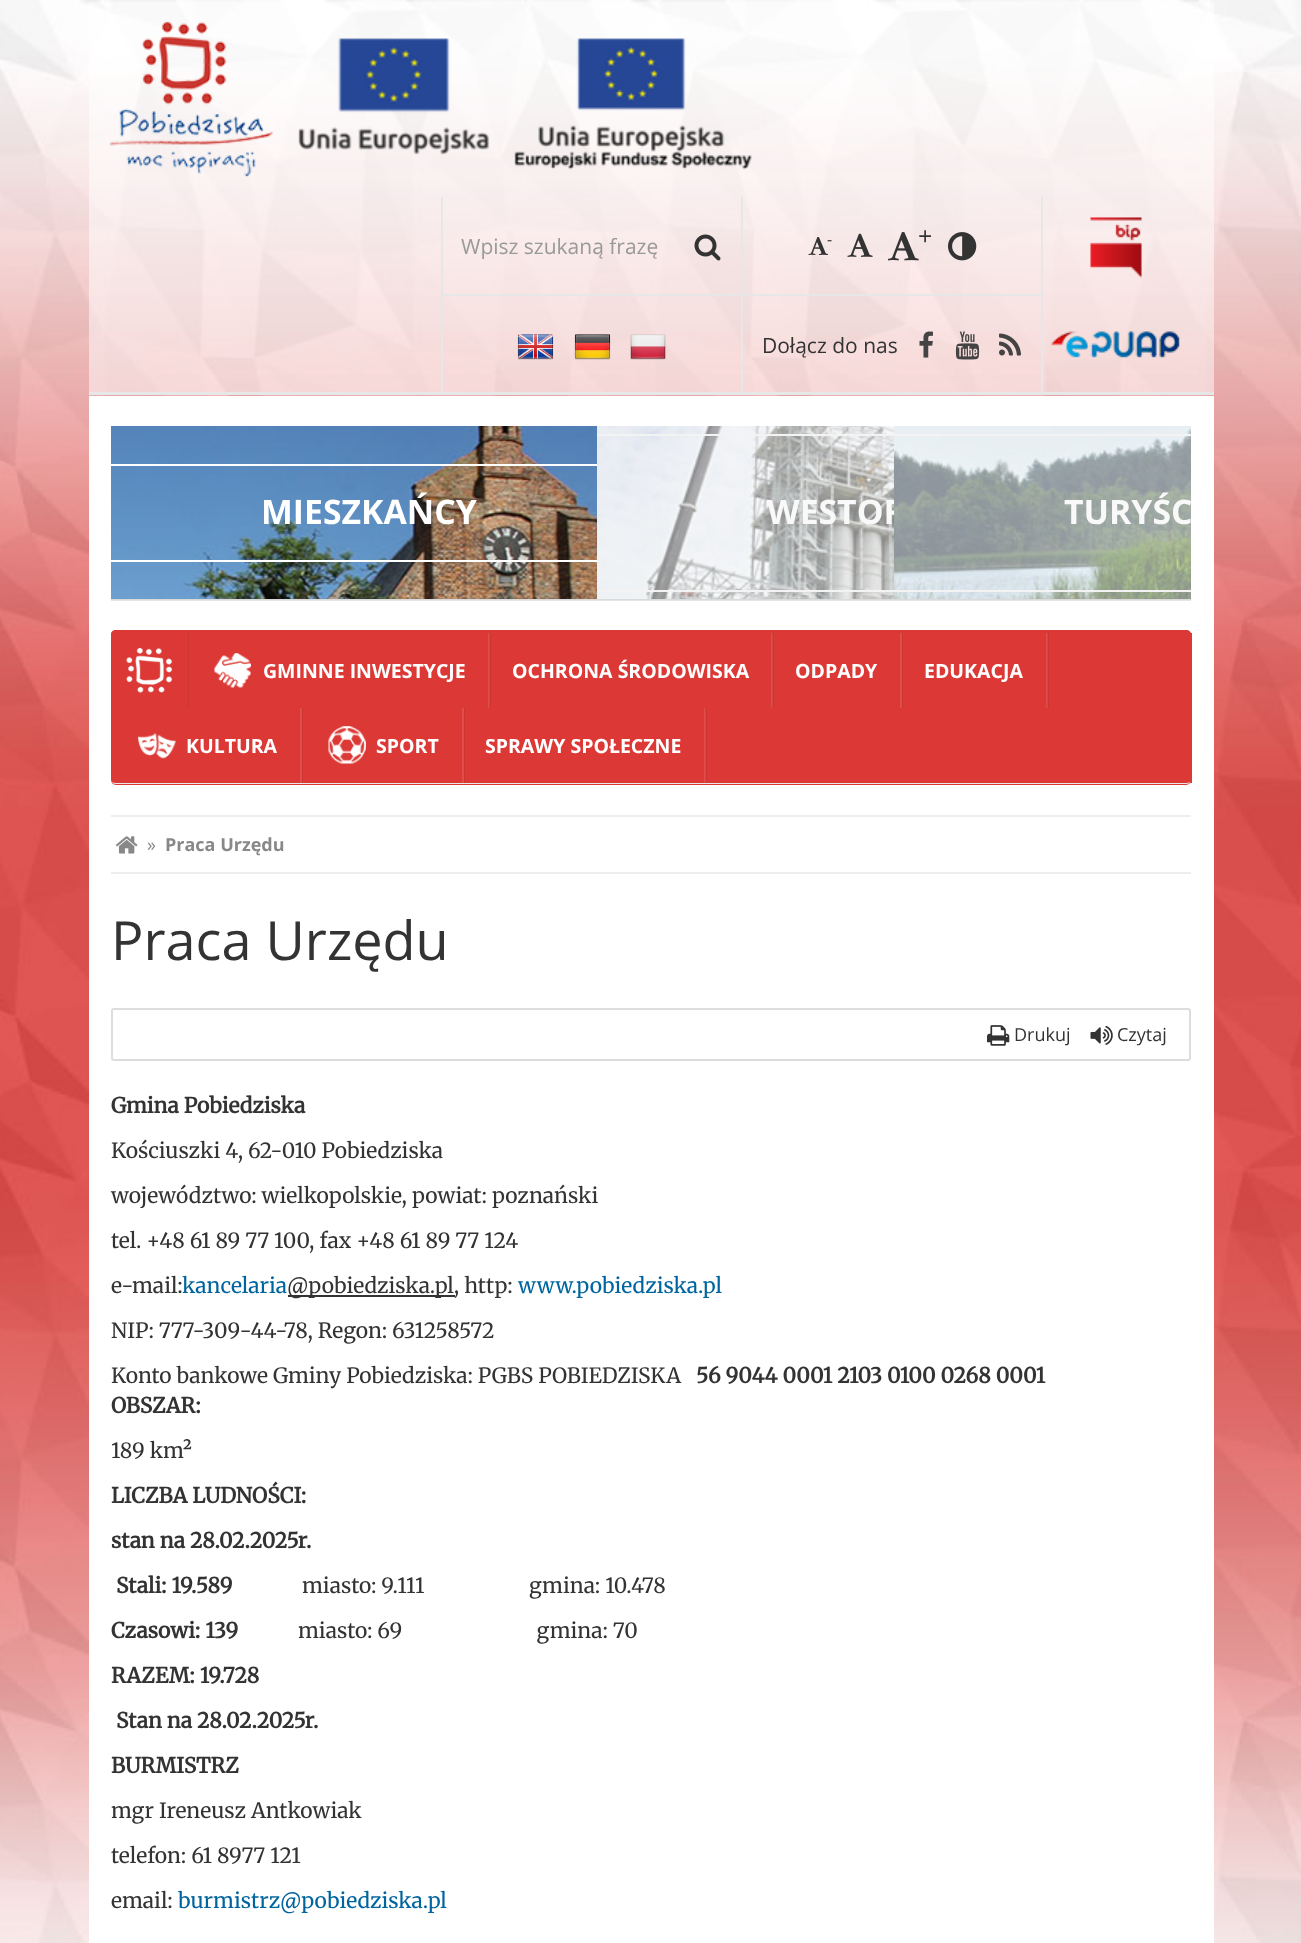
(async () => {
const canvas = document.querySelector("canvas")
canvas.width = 1301
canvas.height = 1943
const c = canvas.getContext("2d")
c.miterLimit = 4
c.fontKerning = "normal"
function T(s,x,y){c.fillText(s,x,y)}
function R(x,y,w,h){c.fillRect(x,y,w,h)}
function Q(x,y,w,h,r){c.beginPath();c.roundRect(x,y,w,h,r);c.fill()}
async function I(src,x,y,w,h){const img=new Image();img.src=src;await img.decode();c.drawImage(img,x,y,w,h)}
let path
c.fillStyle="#fff"
R(0,0,1301,1943)
await I("1.png",0,0,1301,1943)
c.fillStyle="#ffffff80"
R(89,2,1125,390)
c.fillStyle="#e7e7e7"
R(89,392,1125,3)
await I("2.png",109,21,165,156)
await I("3.png",298,38,454,132)
R(441,294,600,2)
R(441,197,2,195)
await I("4.png",517,334,37,26)
await I("5.png",574,334,37,26)
await I("6.png",630,334,36,26)
R(1041,197,2,195)
await I("7.png",1090,217,52,61)
await I("8.png",1051,331,129,27)
c.font="21px Open Sans"
c.fillStyle="#999"
T("Wpisz szukaną frazę",461,254)
await I("9.png",694,234,27,27)
c.fillStyle="#e7e7e7"
R(741,197,2,97)
await I("10.png",808,237,20,18)
c.font="16px Open Sans"
c.fillStyle="#333"
T("-",827,245)
await I("11.png",847,233,26,24)
await I("12.png",888,232,31,29)
c.font="25px Open Sans"
T("+",918,245)
await I("13.png",948,232,29,29)
c.fillStyle="#e7e7e7"
R(741,294,2,98)
c.font="21px Open Sans"
c.fillStyle="#333"
T("Dołącz do nas",762,353)
await I("14.png",919,331,14,27)
await I("15.png",955,331,25,29)
await I("16.png",999,333,22,23)
c.fillStyle="#fff"
R(89,396,1125,1547)
c.fillStyle="#f3f3f3"
R(111,599,1080,1)
c.fillStyle="#0000001a"
R(111,599,1080,2)
await I("17.png",111,426,486,173)
c.fillStyle="#fff"
R(111,464,486,2)
c.font="bold 33.75px Open Sans"
T("MIESZKAŃCY",261,524)
R(111,560,486,2)
c.fillStyle="#f9f9f9"
R(597,426,594,173)
await I("18.png",597,426,297,173)
c.fillStyle="#f3f3f3"
R(597,434,297,2)
c.fillStyle="#f9f9f9"
T("WESTOR",767,524)
c.fillStyle="#f3f3f3"
R(597,590,297,2)
await I("19.png",894,426,297,173)
R(894,434,297,2)
c.fillStyle="#f9f9f9"
T("TURYŚC",1064,524)
c.fillStyle="#f3f3f3"
R(894,590,297,2)
c.fillStyle="#dc3936"
Q(111,630,1080,155,5)
path = new Path2D("M116 630c-3 0-5 2-5 4l5-1h1073l2 1c0-2-2-4-5-4z")
c.fill(path)
c.fillStyle="#e7e7e7"
path = new Path2D("M1186 784c3 0 5-2 5-4c0 2-2 3-5 3h-1070c-3 0-5-1-5-3c0 2 2 4 5 4z")
c.fill(path)
c.fillStyle="#cc3532"
R(188,633,1,75)
c.fillStyle="#dc3936"
R(111,633,1,2)
await I("20.png",126,648,47,45)
c.fillStyle="#cc3532"
R(489,633,2,75)
await I("21.png",214,653,37,35)
c.fillStyle="#ffffff1a"
R(488,633,2,75)
c.font="bold 19.5px Open Sans"
c.fillStyle="#fff"
T("GMINNE INWESTYCJE",263,678)
c.fillStyle="#cc3532"
R(772,633,2,75)
c.fillStyle="#ffffff1a"
R(771,633,2,75)
c.fillStyle="#fff"
T("OCHRONA ŚRODOWISKA",512,678)
c.fillStyle="#cc3532"
R(902,633,1,75)
c.fillStyle="#e04d4a"
R(900,633,2,75)
c.fillStyle="#fff"
T("ODPADY",795,678)
c.fillStyle="#cc3532"
R(1047,633,2,75)
c.fillStyle="#ffffff1a"
R(1046,633,2,75)
c.fillStyle="#fff"
T("EDUKACJA",924,678)
c.fillStyle="#dc3936"
R(1190,633,2,150)
c.fillStyle="#cc3532"
R(302,708,1,75)
await I("22.png",138,733,38,26)
c.fillStyle="#e04d4a"
R(300,708,2,75)
c.fillStyle="#fff"
T("KULTURA",186,753)
c.fillStyle="#cc3532"
R(464,708,1,75)
await I("23.png",328,726,38,38)
c.fillStyle="#e04d4a"
R(462,708,2,75)
c.fillStyle="#fff"
T("SPORT",376,753)
c.fillStyle="#cc3532"
R(705,708,2,75)
c.fillStyle="#ffffff1a"
R(704,708,2,75)
c.fillStyle="#fff"
T("SPRAWY SPOŁECZNE",485,753)
c.fillStyle="#eee"
R(111,815,1080,2)
R(111,872,1080,2)
await I("24.png",116,836,22,18)
c.font="18px Open Sans"
c.fillStyle="#888"
T("»",147,851)
c.font="bold 18px Open Sans"
T("Praca Urzędu",165,851)
c.font="54px Open Sans"
c.fillStyle="#333"
T("Praca Urzędu",111,960)
c.beginPath()
c.roundRect(112,1009,1078,51,2)
c.strokeStyle="#ddd"
c.lineWidth=2
c.stroke()
await I("25.png",987,1025,23,21)
c.font="18px Open Sans"
T("Drukuj",1014,1041)
await I("26.png",1090,1025,23,20)
T("Czytaj",1117,1041)
c.font="bold 21px Merriweather"
T("Gmina Pobiedziska",111,1113)
c.font="300 21px Merriweather"
T("Kościuszki 4, 62-010 Pobiedziska",111,1158)
T("województwo: wielkopolskie, powiat: poznański",111,1203)
T("tel. +48 61 89 77 100, fax +48 61 89 77 124",111,1248)
T("e-mail:",111,1293)
c.fillStyle="#00659e"
T("kancelaria",182,1293)
c.fillStyle="#333"
R(288,1295,167,2)
T("@pobiedziska.pl, http:",287,1293)
c.fillStyle="#00659e"
T("www.pobiedziska.pl",518,1293)
c.fillStyle="#333"
T("NIP: 777-309-44-78, Regon: 631258572",111,1338)
T("Konto bankowe Gminy Pobiedziska: PGBS POBIEDZISKA",111,1383)
c.font="bold 21px Merriweather"
T("56 9044 0001 2103 0100 0268 0001",696,1383)
T("OBSZAR:",111,1413)
c.font="300 21px Merriweather"
T("189 km²",111,1458)
c.font="bold 21px Merriweather"
T("LICZBA LUDNOŚCI:",111,1503)
T("stan na 28.02.2025r.",111,1548)
T("Stali: 19.589",116,1593)
c.font="300 21px Merriweather"
T("miasto: 9.111                     gmina: 10.478",302,1593)
c.font="bold 21px Merriweather"
T("Czasowi: 139",111,1638)
c.font="300 21px Merriweather"
T("miasto: 69                           gmina: 70",298,1638)
c.font="bold 21px Merriweather"
T("RAZEM: 19.728",111,1683)
T("Stan na 28.02.2025r.",116,1728)
T("BURMISTRZ",111,1773)
c.font="300 21px Merriweather"
T("mgr Ireneusz Antkowiak",111,1818)
T("telefon: 61 8977 121",111,1863)
T("email:",111,1908)
c.fillStyle="#00659e"
T("burmistrz@pobiedziska.pl",178,1908)
})()
